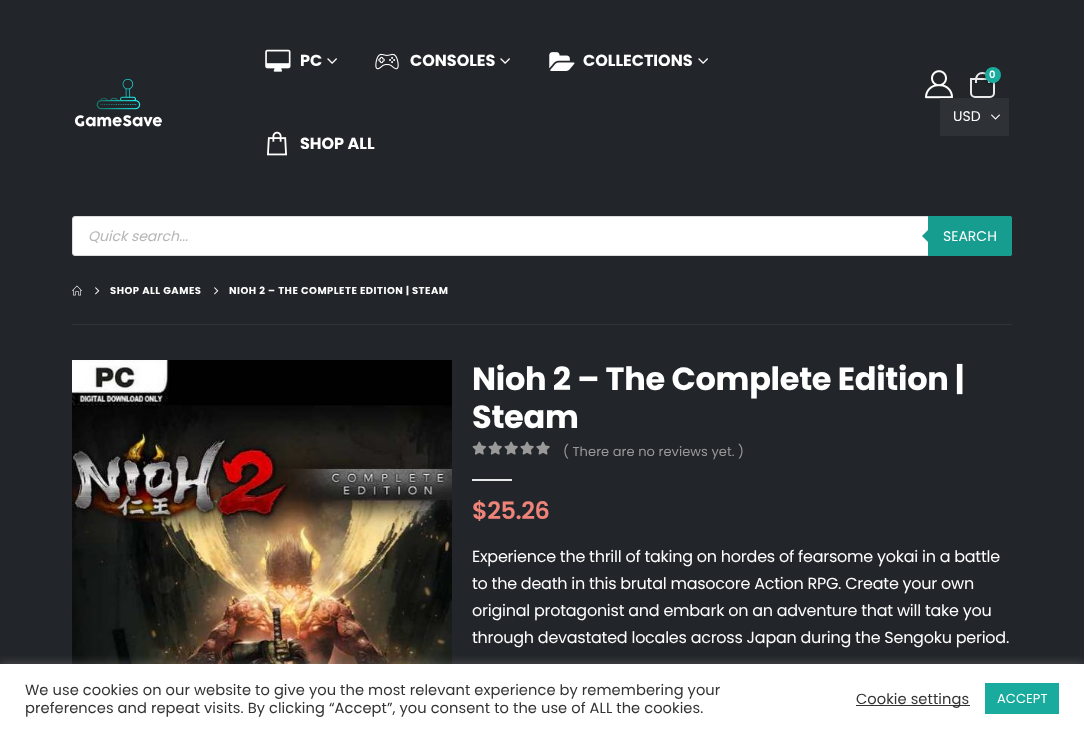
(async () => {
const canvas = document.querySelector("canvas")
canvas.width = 1084
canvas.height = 733
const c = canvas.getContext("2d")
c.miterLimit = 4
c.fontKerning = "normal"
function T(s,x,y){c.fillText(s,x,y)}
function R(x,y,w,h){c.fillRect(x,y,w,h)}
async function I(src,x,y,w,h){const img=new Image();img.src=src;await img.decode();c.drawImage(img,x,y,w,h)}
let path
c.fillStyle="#222529"
R(0,0,1084,733)
await I("1.png",74,78,88,49)
await I("2.png",265,49,26,23)
c.font="bold 16px Poppins"
c.fillStyle="#fff"
T("PC",300,66)
await I("3.png",327,58,10,6)
await I("4.png",375,53,24,17)
T("CONSOLES",410,66)
await I("3.png",500,58,10,6)
await I("5.png",549,52,26,19)
T("COLLECTIONS",583,66)
await I("3.png",698,58,10,6)
await I("6.png",267,131,20,25)
T("SHOP ALL",300,149)
await I("7.png",925,70,28,29)
c.beginPath()
c.roundRect(971,79,23,18,[0,0,4,4])
c.strokeStyle="#e9e9ea"
c.lineWidth=2
c.stroke()
c.fillStyle="#e9e9ea"
path = new Path2D("M982.5 72c4 0 7.5 3.5 7.5 7.5v3.5h-15v-3.5c0-4 3.5-7.5 7.5-7.5zm0 2c5.5 0 5.5 5 5.5 9h-11c0-4 0-9 5.5-9z")
c.fill(path,"evenodd")
c.fillStyle="#0000004d"
c.filter="blur(1px)"
c.beginPath()
c.roundRect(984,68,16,16,8)
c.fill()
c.filter="none"
c.fillStyle="#1aab9f"
c.beginPath()
c.arc(993,75,8,0,7)
c.fill()
c.letterSpacing="0.07px"
c.font="600 10px Poppins"
c.fillStyle="#fff"
T("0",989,78)
c.fillStyle="#2e3237"
R(940,98,69,38)
await I("8.png",991,114,9,6)
c.letterSpacing="0px"
c.font="14px Poppins"
c.fillStyle="#fff"
T("USD",953,121)
c.beginPath()
c.roundRect(72.5,216.5,939,39,2.5)
c.fill()
c.strokeStyle="#ddd"
c.lineWidth=1
c.stroke()
c.font="italic 14px Poppins"
c.fillStyle="#b6b6b6"
T("Quick search...",88,241)
c.fillStyle="#169d90"
c.beginPath()
c.roundRect(928,216,84,40,[0,2,2,0])
c.fill()
path = new Path2D("M930 228v16l-8-8z")
c.fill(path)
c.font="14px Poppins"
c.fillStyle="#fff"
T("SEARCH",943,241)
await I("9.png",72,285,10,11)
await I("10.png",95,287,5,8)
c.letterSpacing="0.5px"
c.font="bold 10px Poppins"
T("SHOP ALL GAMES",110,294)
await I("10.png",214,287,5,8)
T("NIOH 2 – THE COMPLETE EDITION | STEAM",229,294)
c.fillStyle="#303438"
R(72,324,940,1)
await I("11.png",72,360,380,304)
c.letterSpacing="-0.3px"
c.font="bold 32px Poppins"
c.fillStyle="#fff"
T("Nioh 2 – The Complete Edition |",472,390)
T("Steam",472,428)
await I("12.png",472,441,78,14)
c.letterSpacing="0.07px"
c.font="13px Poppins"
c.fillStyle="#999"
T("( There are no reviews yet. )",563,456)
c.fillStyle="#e7e7e7"
R(472,479,40,2)
c.letterSpacing="-0.5px"
c.font="600 24px Poppins"
c.fillStyle="#ee8379"
T("$25.26",472,519)
c.letterSpacing="-0.25px"
c.font="16px Poppins"
c.fillStyle="#fff"
T("Experience the thrill of taking on hordes of fearsome yokai in a battle",472,562)
T("to the death in this brutal masocore Action RPG. Create your own",472,589)
T("original protagonist and embark on an adventure that will take you",472,616)
T("through devastated locales across Japan during the Sengoku period.",472,643)
c.fillStyle="#acabab4d"
c.filter="blur(5px)"
c.beginPath()
c.rect(0,663,1084,69)
c.fill()
c.filter="none"
c.fillStyle="#fff"
R(0,664,1084,69)
c.letterSpacing="0.07px"
c.font="14.65px Poppins"
c.fillStyle="#333"
T("We use cookies on our website to give you the most relevant experience by remembering your",25,695)
T("preferences and repeat visits. By clicking “Accept”, you consent to the use of ALL the cookies.",25,713)
R(856,705,114,1)
T("Cookie settings",856,704)
c.fillStyle="#1aab9f"
R(985,683,74,31)
c.font="13px Poppins"
c.fillStyle="#fff"
T("ACCEPT",997,703)
})()
